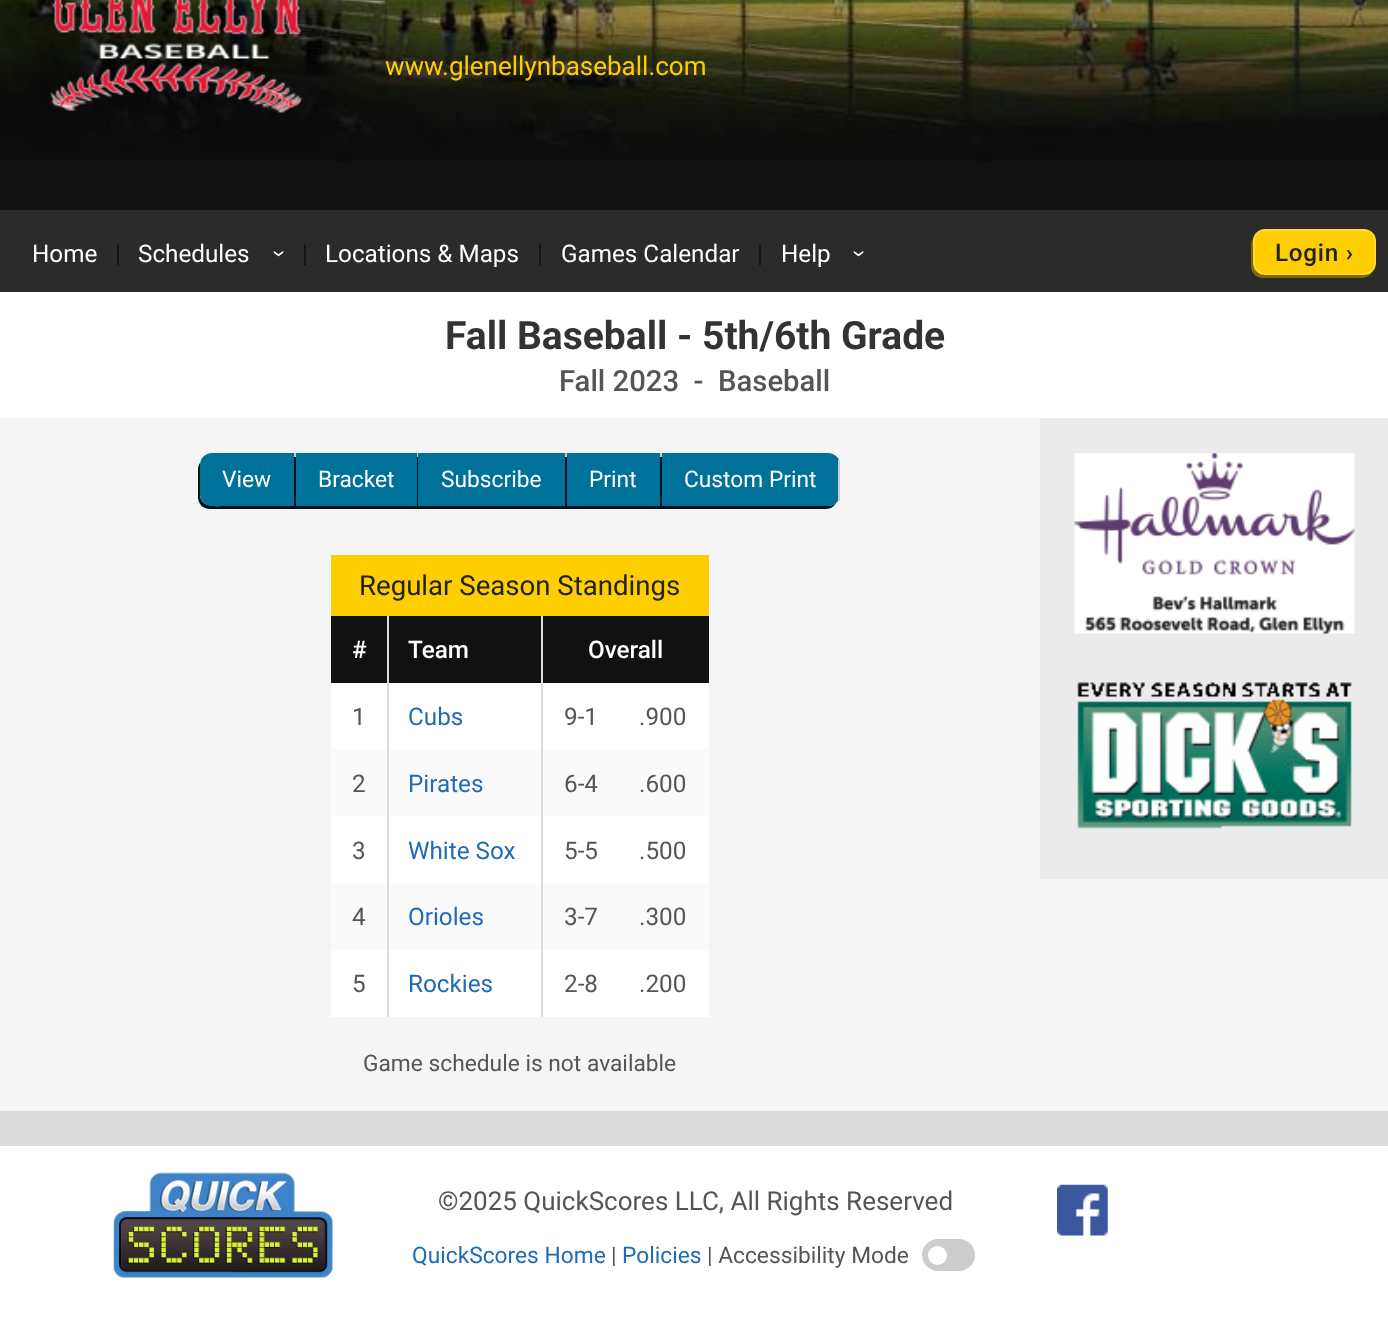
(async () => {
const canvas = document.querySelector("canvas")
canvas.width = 1388
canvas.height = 1317
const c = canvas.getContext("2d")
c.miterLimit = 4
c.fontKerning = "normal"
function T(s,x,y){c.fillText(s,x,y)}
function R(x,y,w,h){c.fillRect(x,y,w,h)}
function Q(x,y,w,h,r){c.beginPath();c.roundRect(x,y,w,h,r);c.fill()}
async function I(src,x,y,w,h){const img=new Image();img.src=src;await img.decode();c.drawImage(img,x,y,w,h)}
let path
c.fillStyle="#f5f5f5"
R(0,0,1388,1317)
c.fillStyle="#111"
R(0,161,1388,49)
await I("1.png",0,0,1388,161)
await I("2.png",49,0,254,113)
c.font="26px Roboto"
c.fillStyle="#ffce00"
T("www.glenellynbaseball.com",385,75)
c.fillStyle="#2b2b2b"
R(0,210,1388,82)
c.font="24.25px Roboto"
c.fillStyle="#fff"
T("Home",32,262)
c.fillStyle="#111"
T("|",115,262)
c.fillStyle="#fff"
T("Schedules",138,262)
c.save()
c.translate(272,250)
c.rotate(90 * Math.PI / 180)
c.fillText("›",0,0)
c.restore()
c.fillStyle="#111"
T("|",302,262)
c.fillStyle="#fff"
T("Locations & Maps",325,262)
c.fillStyle="#111"
T("|",537,262)
c.fillStyle="#fff"
T("Games Calendar",561,262)
c.fillStyle="#111"
T("|",757,262)
c.fillStyle="#fff"
T("Help",781,262)
c.save()
c.translate(852,250)
c.rotate(90 * Math.PI / 180)
c.fillText("›",0,0)
c.restore()
c.fillStyle="#806700"
path = new Path2D("M1254 237c-2 2-3 5-3 8v21c0 7 5 12 12 12h99c6 0 10-4 12-9c-3 3-6 6-11 6h-98c-7 0-12-6-12-13v-20z")
c.fill(path)
c.fillStyle="#ffce00"
c.beginPath()
c.roundRect(1254,230,121,44,11)
c.fill()
c.strokeStyle="#ffd833"
c.lineWidth=2
c.stroke()
c.letterSpacing="0.75px"
c.font="500 24.25px Roboto"
c.fillStyle="#222"
T("Login ›",1275,261)
c.fillStyle="#fff"
R(0,292,1388,126)
c.letterSpacing="0px"
c.font="bold 39px Roboto"
c.fillStyle="#333"
T("Fall Baseball - 5th/6th Grade",445,349)
c.font="500 29.25px Roboto"
c.fillStyle="#555"
T("Fall 2023  -  Baseball",559,391)
c.fillStyle="#001219"
path = new Path2D("M200 463c-1 1-2 4-2 6v28c0 7 5 12 12 12h84v-3h-69c-9 0-23 2-25-10z")
c.fill(path)
c.fillStyle="#007198"
c.beginPath()
c.roundRect(200,453,96,53,[12,0,0,12])
c.fill()
c.fillStyle="#ccc"
R(294,453,2,4)
c.font="22.75px Roboto"
c.fillStyle="#fff"
T("View",222,487)
c.fillStyle="#001219"
path = new Path2D("M294 457v52h123v-3h-121v-49z")
c.fill(path)
c.fillStyle="#007198"
R(296,453,121,53)
c.fillStyle="#ccc"
R(417,453,1,4)
c.fillStyle="#fff"
T("Bracket",318,487)
c.fillStyle="#001219"
path = new Path2D("M417 457v52h148v-3h-147v-49z")
c.fill(path)
c.fillStyle="#007198"
R(418,453,147,53)
c.fillStyle="#ccc"
R(565,453,2,4)
c.fillStyle="#fff"
T("Subscribe",441,487)
c.fillStyle="#001219"
path = new Path2D("M565 457v52h95v-3h-93v-49z")
c.fill(path)
c.fillStyle="#007198"
R(567,453,93,53)
c.fillStyle="#ccc"
R(660,453,2,4)
c.fillStyle="#fff"
T("Print",589,487)
c.fillStyle="#001219"
path = new Path2D("M660 457v52h166c5 0 9-3 11-8c-2 3-5 5-9 5h-166v-49z")
c.fill(path)
c.fillStyle="#007198"
c.beginPath()
c.roundRect(662,453,178,53,[0,12,12,0])
c.fill()
c.fillStyle="#ccc"
R(838,460,2,41)
c.fillStyle="#fff"
T("Custom Print",684,487)
R(331,683,378,334)
c.fillStyle="#ffce00"
R(331,555,378,61)
c.font="27.6px Roboto"
c.fillStyle="#222"
T("Regular Season Standings",359,595)
c.fillStyle="#111"
R(331,616,56,67)
c.fillStyle="#dcdcdc"
R(387,616,2,133)
c.font="500 24.25px Roboto"
c.fillStyle="#fff"
T("#",352,658)
c.fillStyle="#111"
R(389,616,152,67)
c.fillStyle="#dcdcdc"
R(541,616,2,133)
c.fillStyle="#fff"
T("Team",408,658)
c.fillStyle="#111"
R(543,616,166,67)
c.fillStyle="#fff"
T("Overall",588,658)
c.font="24.25px Roboto"
c.fillStyle="#555"
T("1",352,725)
c.fillStyle="#1f6bb6"
T("Cubs",408,725)
c.fillStyle="#555"
T("9-1",564,725)
T(".900",639,725)
c.fillStyle="#fafafa"
R(331,749,378,67)
c.fillStyle="#dcdcdc"
R(387,749,2,135)
c.fillStyle="#555"
T("2",352,792)
c.fillStyle="#dcdcdc"
R(541,749,2,135)
c.fillStyle="#1f6bb6"
T("Pirates",408,792)
c.fillStyle="#555"
T("6-4",564,792)
T(".600",639,792)
T("3",352,859)
c.fillStyle="#1f6bb6"
T("White Sox",408,859)
c.fillStyle="#555"
T("5-5",564,859)
T(".500",639,859)
c.fillStyle="#fafafa"
R(331,884,378,66)
c.fillStyle="#dcdcdc"
R(387,884,2,133)
c.fillStyle="#555"
T("4",352,925)
c.fillStyle="#dcdcdc"
R(541,884,2,133)
c.fillStyle="#1f6bb6"
T("Orioles",408,925)
c.fillStyle="#555"
T("3-7",564,925)
T(".300",639,925)
T("5",352,992)
c.fillStyle="#1f6bb6"
T("Rockies",408,992)
c.fillStyle="#555"
T("2-8",564,992)
T(".200",639,992)
c.font="22.75px Roboto"
T("Game schedule is not available",363,1071)
c.fillStyle="#ebebeb"
R(1040,418,348,461)
await I("3.png",1074,453,281,181)
await I("4.png",1077,682,275,147)
c.fillStyle="#fff"
R(0,1146,1388,171)
c.fillStyle="#dcdcdc"
R(0,1111,1388,35)
await I("5.png",113,1172,220,106)
c.font="26px Roboto"
c.fillStyle="#555"
T("©2025 QuickScores LLC, All Rights Reserved",438,1210)
c.font="22.75px Roboto"
c.fillStyle="#1f6bb6"
T("QuickScores Home",412,1263)
c.fillStyle="#555"
T("|",611,1263)
c.fillStyle="#1f6bb6"
T("Policies",622,1263)
c.fillStyle="#555"
T("| Accessibility Mode",707,1263)
c.fillStyle="#ccc"
Q(922,1239,53,32,16)
c.fillStyle="#fff"
c.beginPath()
c.arc(937.5,1255.5,9.5,0,7)
c.fill()
await I("6.png",1057,1184,51,52)
})()
